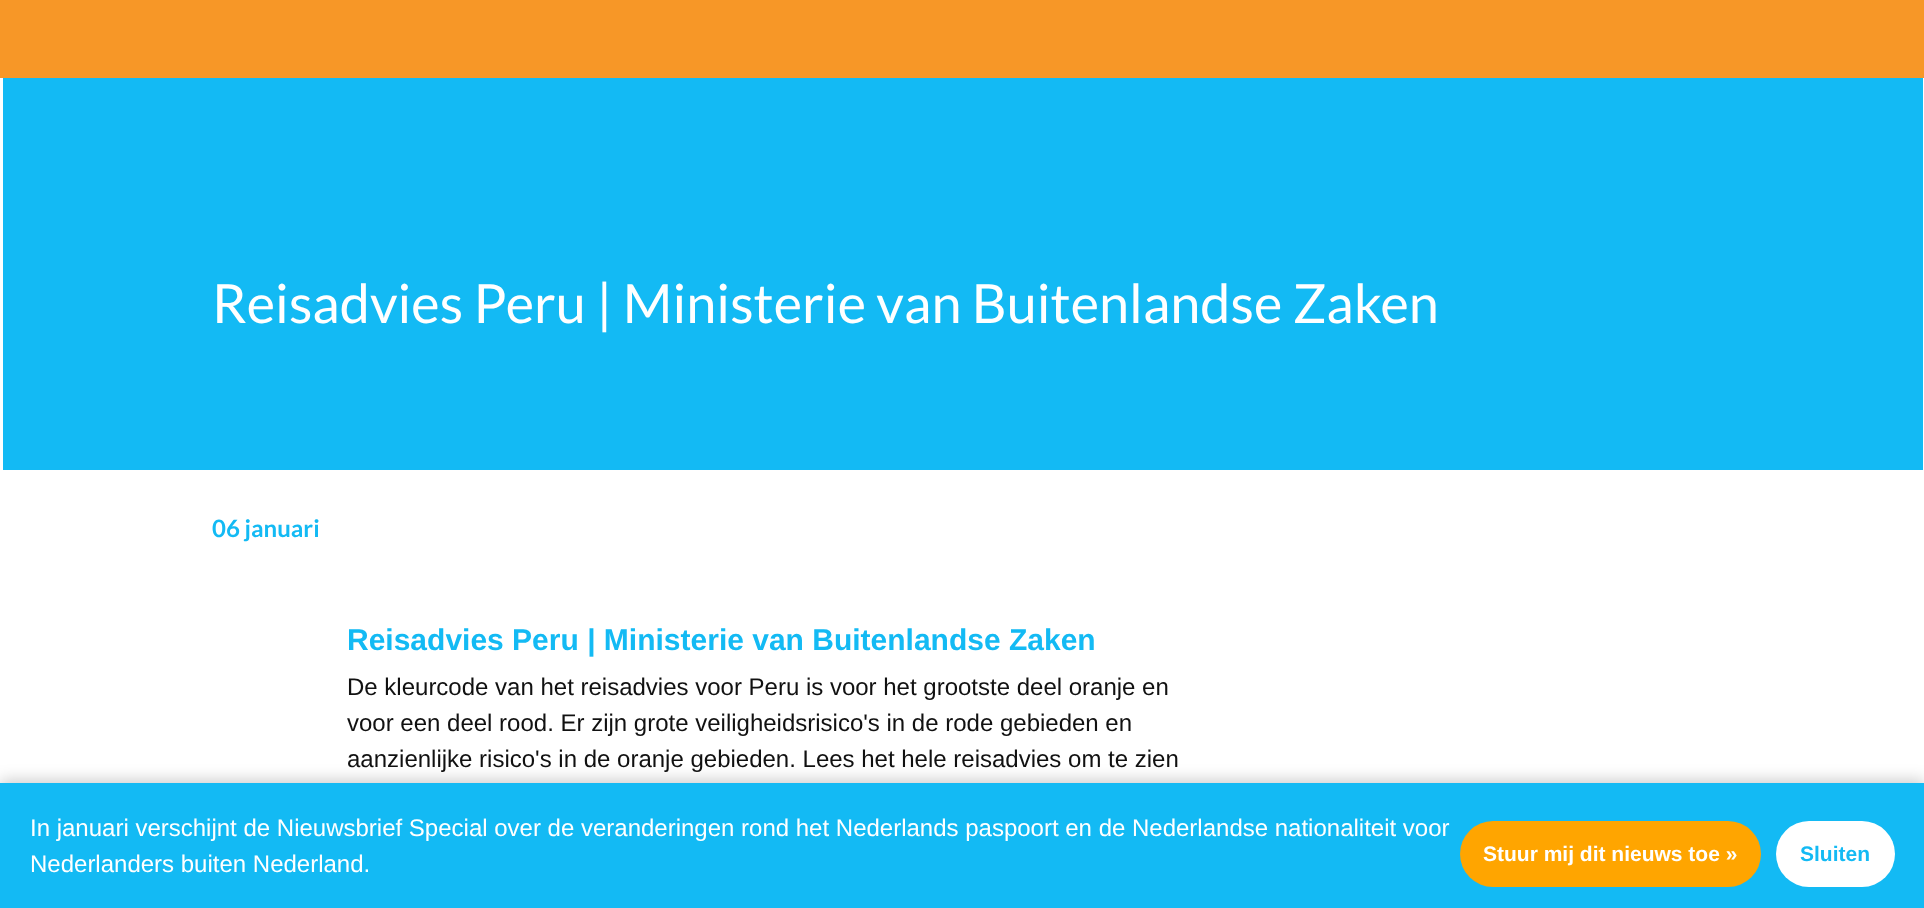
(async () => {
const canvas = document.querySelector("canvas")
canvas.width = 1924
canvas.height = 908
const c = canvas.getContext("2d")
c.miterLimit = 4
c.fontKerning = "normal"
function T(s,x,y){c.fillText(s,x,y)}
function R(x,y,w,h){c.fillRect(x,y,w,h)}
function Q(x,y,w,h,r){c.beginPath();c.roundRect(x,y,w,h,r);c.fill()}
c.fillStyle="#fff"
R(0,0,1924,908)
c.fillStyle="#f79727"
R(0,0,1924,78)
c.fillStyle="#13baf4"
R(3,78,1920,392)
c.font="54px Lato"
c.fillStyle="#fff"
T("Reisadvies Peru | Ministerie van Buitenlandse Zaken",212,323)
c.font="bold 24px Lato"
c.fillStyle="#13baf4"
T("06 januari",212,537)
c.font="bold 30px Liberation Sans"
T("Reisadvies Peru | Ministerie van Buitenlandse Zaken",347,650)
c.font="24px Liberation Sans"
c.fillStyle="#111"
T("De kleurcode van het reisadvies voor Peru is voor het grootste deel oranje en",347,695)
T("voor een deel rood. Er zijn grote veiligheidsrisico's in de rode gebieden en",347,731)
T("aanzienlijke risico's in de oranje gebieden. Lees het hele reisadvies om te zien",347,767)
c.fillStyle="#00000033"
c.filter="blur(7.5px)"
c.beginPath()
c.rect(0,780,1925,126)
c.fill()
c.filter="none"
c.fillStyle="#13baf4"
R(0,783,1924,125)
c.fillStyle="#fff"
T("In januari verschijnt de Nieuwsbrief Special over de veranderingen rond het Nederlands paspoort en de Nederlandse nationaliteit voor",30,836)
T("Nederlanders buiten Nederland.",30,872)
c.fillStyle="#ffa500"
Q(1460,821,301,66,33)
c.font="bold 21px Liberation Sans"
c.fillStyle="#fff"
T("Stuur mij dit nieuws toe »",1483,861)
Q(1776,821,119,66,33)
c.fillStyle="#13baf4"
T("Sluiten",1800,861)
})()
